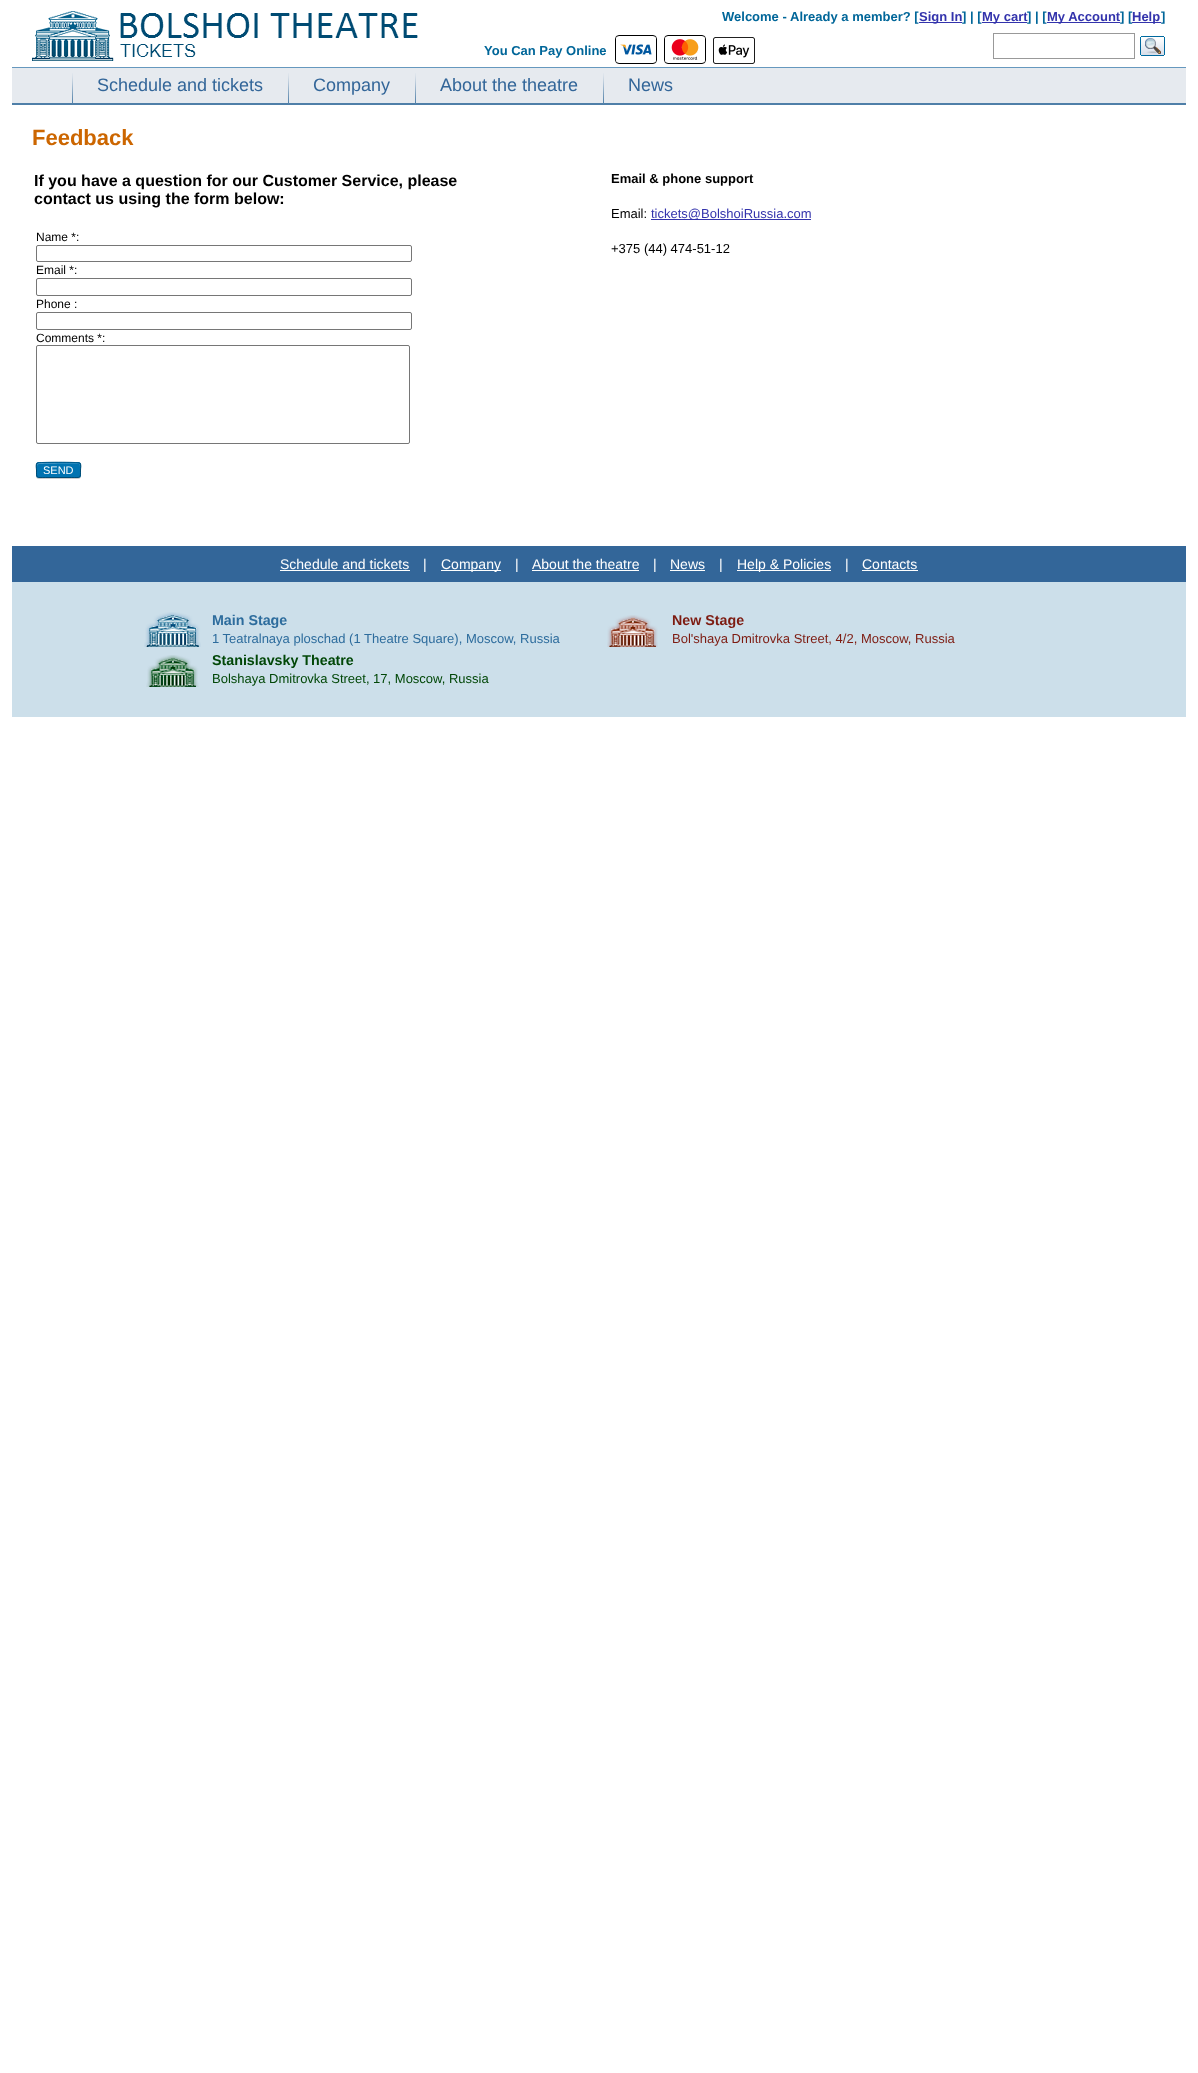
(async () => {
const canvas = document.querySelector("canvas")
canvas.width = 1198
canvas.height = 2073
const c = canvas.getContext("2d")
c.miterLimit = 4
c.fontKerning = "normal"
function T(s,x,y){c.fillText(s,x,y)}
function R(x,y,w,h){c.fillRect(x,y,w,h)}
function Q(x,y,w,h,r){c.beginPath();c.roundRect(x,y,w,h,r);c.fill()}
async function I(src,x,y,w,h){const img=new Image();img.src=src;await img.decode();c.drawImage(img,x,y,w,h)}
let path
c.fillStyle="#fff"
R(0,0,1198,2073)
await I("1.png",32,11,386,50)
c.font="bold 13px Liberation Sans"
c.fillStyle="#069"
T("Welcome -",722,21)
T("Already a member? [",790,21)
c.fillStyle="#3333ac"
R(919,22,43,1)
T("Sign In",919,21)
c.fillStyle="#069"
T("] | [",962,21)
c.fillStyle="#3333ac"
R(982,22,45,1)
T("My cart",982,21)
c.fillStyle="#069"
T("] | [",1027,21)
c.fillStyle="#3333ac"
R(1047,22,73,1)
T("My Account",1047,21)
c.fillStyle="#069"
T("] [",1120,21)
c.fillStyle="#3333ac"
R(1132,22,29,1)
T("Help",1132,21)
c.fillStyle="#069"
T("]",1161,21)
T("You Can Pay Online",484,55)
c.beginPath()
c.roundRect(615.5,35.5,41,28,3.5)
c.strokeStyle="#000"
c.stroke()
c.beginPath()
c.roundRect(664.5,35.5,41,28,3.5)
c.stroke()
await I("2.png",616,37,40,25)
await I("3.png",665,37,40,25)
await I("4.png",713,37,42,27)
c.strokeStyle="#999"
c.strokeRect(993.5,33.5,141,25)
await I("5.png",1140,36,25,20)
c.fillStyle="#6698be"
R(12,67,1174,1)
c.fillStyle="#e6eaef"
R(12,68,1174,35)
c.fillStyle="#4f7fa8"
R(12,103,1174,2)
await I("6.png",72,73,1,31)
c.font="18px Liberation Sans"
c.fillStyle="#369"
T("Schedule and tickets",97,91)
await I("6.png",288,73,1,31)
T("Company",313,91)
await I("6.png",415,73,1,31)
T("About the theatre",440,91)
await I("6.png",603,73,1,31)
T("News",628,91)
c.font="bold 22px Liberation Sans"
c.fillStyle="#c60"
T("Feedback",32,145)
c.font="bold 16px Liberation Sans"
c.fillStyle="#000"
T("If you have a question for our Customer Service, please",34,186)
T("contact us using the form below:",34,204)
c.font="12px Liberation Sans"
T("Name *:",36,241)
c.beginPath()
c.roundRect(36.5,245.5,375,16,1.5)
c.strokeStyle="#767676"
c.stroke()
T("Email *:",36,274)
c.beginPath()
c.roundRect(36.5,278.5,375,17,1.5)
c.stroke()
T("Phone :",36,308)
c.beginPath()
c.roundRect(36.5,312.5,375,17,1.5)
c.stroke()
T("Comments *:",36,342)
c.beginPath()
c.roundRect(36.5,345.5,373,98,1.5)
c.stroke()
c.fillStyle="#00000033"
c.filter="blur(0.5px)"
c.beginPath()
c.roundRect(36,463,45,16,3)
c.fill()
c.filter="none"
c.fillStyle="#0073b1"
Q(36,462,45,16,3)
c.fillStyle="#4d9dc8"
path = new Path2D("M39 464c2 0 40-1 40 0c1 1 1 4 1 5c0-7 0-6-8-6h-26c-6 0-9-2-9 4c0-2 1-3 2-3zm-2 12v-2z")
c.fill(path,"evenodd")
path = new Path2D("M37 463c1.5-1 41.5-1 43 0")
c.strokeStyle="#005a8a"
c.stroke(path)
path = new Path2D("M80 463c1.5 2 .5 5 .5 7c0 8.5 .5 7.5-9 7.5h-26c-9.5 0-9 1-9-7.5c0-2-1-5 .5-7")
c.strokeStyle="#004b73"
c.stroke(path)
c.font="11px Liberation Sans"
c.fillStyle="#fff"
T("SEND",43,474)
c.font="bold 13px Liberation Sans"
c.fillStyle="#000"
T("Email & phone support",611,183)
c.font="13px Liberation Sans"
T("Email:",611,218)
c.fillStyle="#3333ac"
R(651,219,160,1)
T("tickets@BolshoiRussia.com",651,218)
c.fillStyle="#000"
T("+375 (44) 474-51-12",611,253)
c.fillStyle="#369"
R(12,546,1174,36)
c.font="14px Liberation Sans"
c.fillStyle="#fff"
T("Schedule and tickets",280,569)
R(280,570,130,1)
T("|",423,569)
R(441,570,60,1)
T("Company",441,569)
T("|",515,569)
T("About the theatre",532,569)
R(532,570,107,1)
T("|",653,569)
T("News",670,569)
R(670,570,35,1)
T("|",719,569)
R(737,570,94,1)
T("Help & Policies",737,569)
T("|",845,569)
T("Contacts",862,569)
R(862,570,56,1)
c.fillStyle="#ccdfea"
R(12,582,1174,135)
await I("7.png",144,612,57,35)
c.font="bold 14.25px Liberation Sans"
c.fillStyle="#2d6c9d"
T("Main Stage",212,625)
c.font="13px Liberation Sans"
T("1 Teatralnaya ploschad (1 Theatre Square), Moscow, Russia",212,643)
await I("8.png",607,615,51,32)
c.font="bold 14.25px Liberation Sans"
c.fillStyle="#7d1b11"
T("New Stage",672,625)
c.font="13px Liberation Sans"
T("Bol'shaya Dmitrovka Street, 4/2, Moscow, Russia",672,643)
await I("9.png",146,655,53,32)
c.font="bold 14.25px Liberation Sans"
c.fillStyle="#014707"
T("Stanislavsky Theatre",212,665)
c.font="13px Liberation Sans"
T("Bolshaya Dmitrovka Street, 17, Moscow, Russia",212,683)
})()
